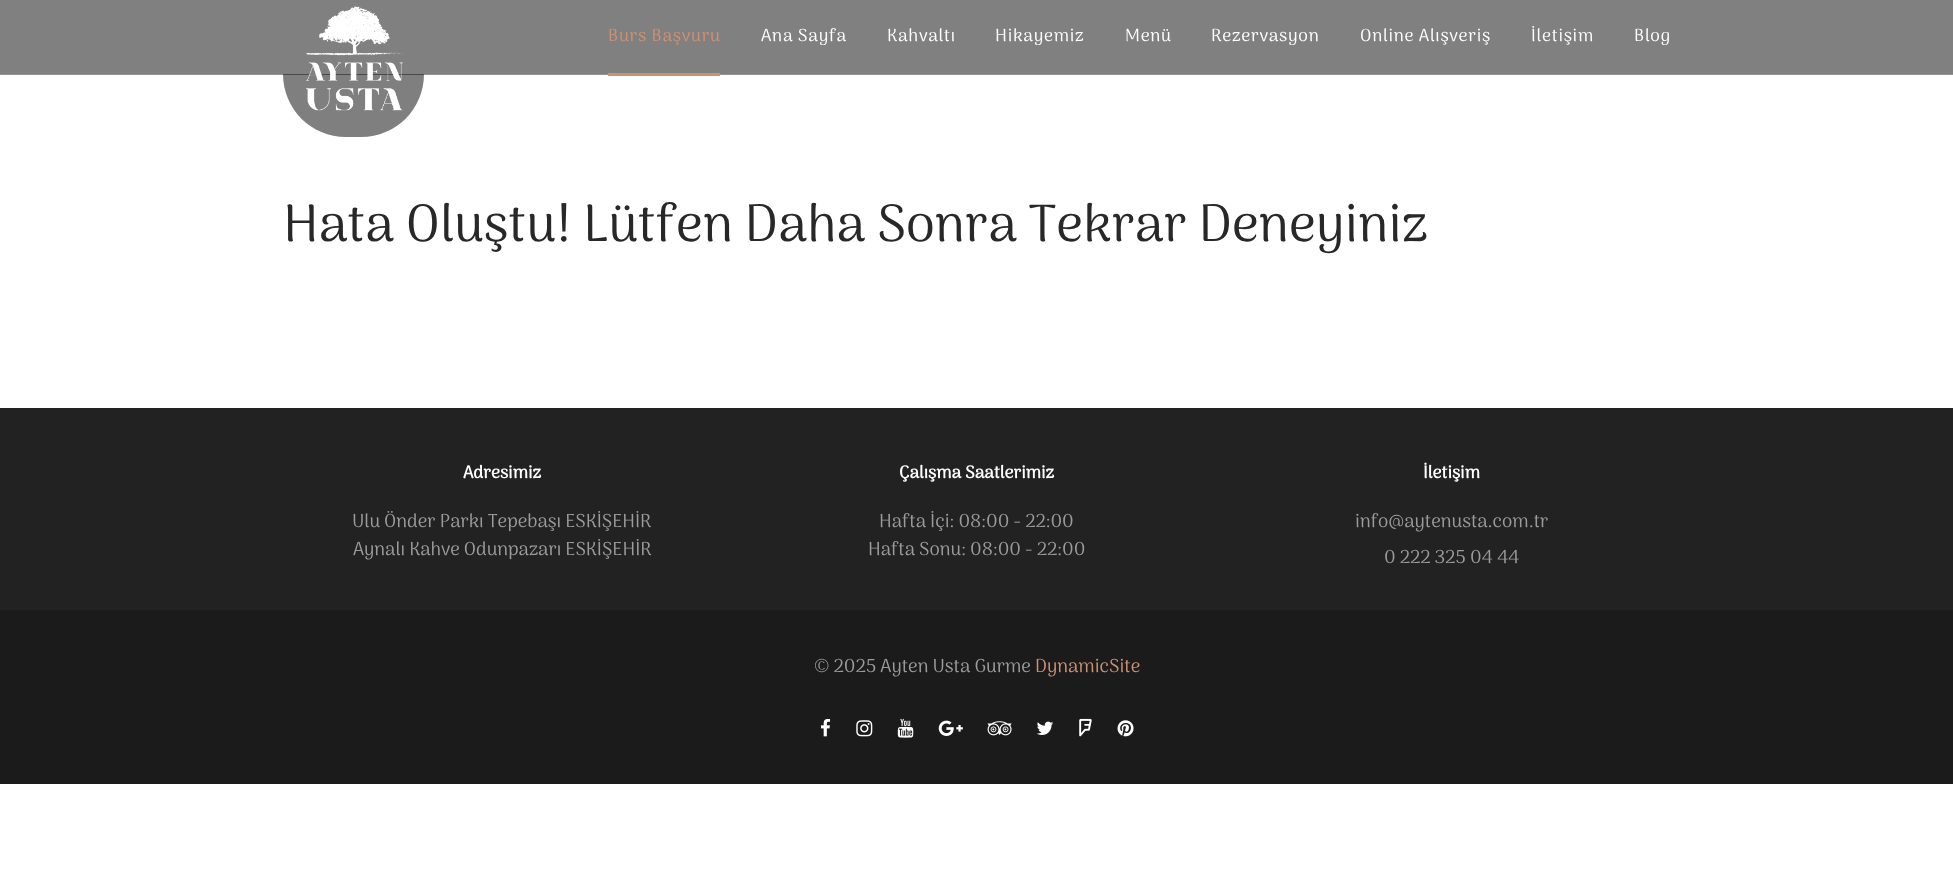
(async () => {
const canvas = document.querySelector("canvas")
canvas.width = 1953
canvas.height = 882
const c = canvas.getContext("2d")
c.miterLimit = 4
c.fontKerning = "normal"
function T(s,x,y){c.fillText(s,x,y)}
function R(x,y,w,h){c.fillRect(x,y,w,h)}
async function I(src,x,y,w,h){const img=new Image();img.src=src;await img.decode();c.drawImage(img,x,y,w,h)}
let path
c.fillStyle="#fff"
R(0,0,1953,882)
c.fillStyle="#808080"
R(0,0,1953,74)
c.fillStyle="#939393"
R(0,74,1953,1)
c.fillStyle="#00000080"
path = new Path2D("M361 137h-15c-35 0-63-28-63-63h141c0 35-28 63-63 63z")
c.fill(path)
await I("1.png",306,6,97,105)
c.letterSpacing="0.75px"
c.font="17.5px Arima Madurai"
c.fillStyle="#cd9173"
T("Burs Başvuru",608,41)
R(608,73,112,3)
c.fillStyle="#fff"
T("Ana Sayfa",761,41)
T("Kahvaltı",887,41)
T("Hikayemiz",995,41)
T("Menü",1125,41)
T("Rezervasyon",1211,41)
T("Online Alışveriş",1360,41)
T("İletişim",1531,41)
T("Blog",1634,41)
c.letterSpacing="0px"
c.font="52.5px Arima Madurai"
c.fillStyle="#282828"
T("Hata Oluştu! Lütfen Daha Sonra Tekrar Deneyiniz",283,241)
c.fillStyle="#222"
R(0,408,1953,202)
c.font="bold 17.5px Arima Madurai"
c.fillStyle="#fff"
T("Adresimiz",463,478)
c.font="18.75px Arima Madurai"
c.fillStyle="#9b9b9b"
T("Ulu Önder Parkı Tepebaşı ESKİŞEHİR",352,527)
T("Aynalı Kahve Odunpazarı ESKİŞEHİR",353,555)
c.font="bold 17.5px Arima Madurai"
c.fillStyle="#fff"
T("Çalışma Saatlerimiz",899,478)
c.font="18.75px Arima Madurai"
c.fillStyle="#9b9b9b"
T("Hafta İçi: 08:00 - 22:00",879,527)
T("Hafta Sonu: 08:00 - 22:00",868,555)
c.font="bold 17.5px Arima Madurai"
c.fillStyle="#fff"
T("İletişim",1423,478)
c.font="18.75px Arima Madurai"
c.fillStyle="#9b9b9b"
T("info@aytenusta.com.tr",1355,527)
T("0 222 325 04 44",1384,563)
c.fillStyle="#1b1b1b"
R(0,610,1953,174)
c.fillStyle="#9b9b9b"
T("© 2025 Ayten Usta Gurme",814,672)
c.fillStyle="#cd9173"
T("DynamicSite",1035,672)
await I("2.png",821,718,10,19)
await I("3.png",856,720,17,17)
await I("4.png",897,718,17,20)
await I("5.png",938,720,25,16)
await I("6.png",987,721,25,15)
await I("7.png",1036,721,17,14)
await I("8.png",1079,718,13,19)
await I("9.png",1117,720,17,17)
})()
